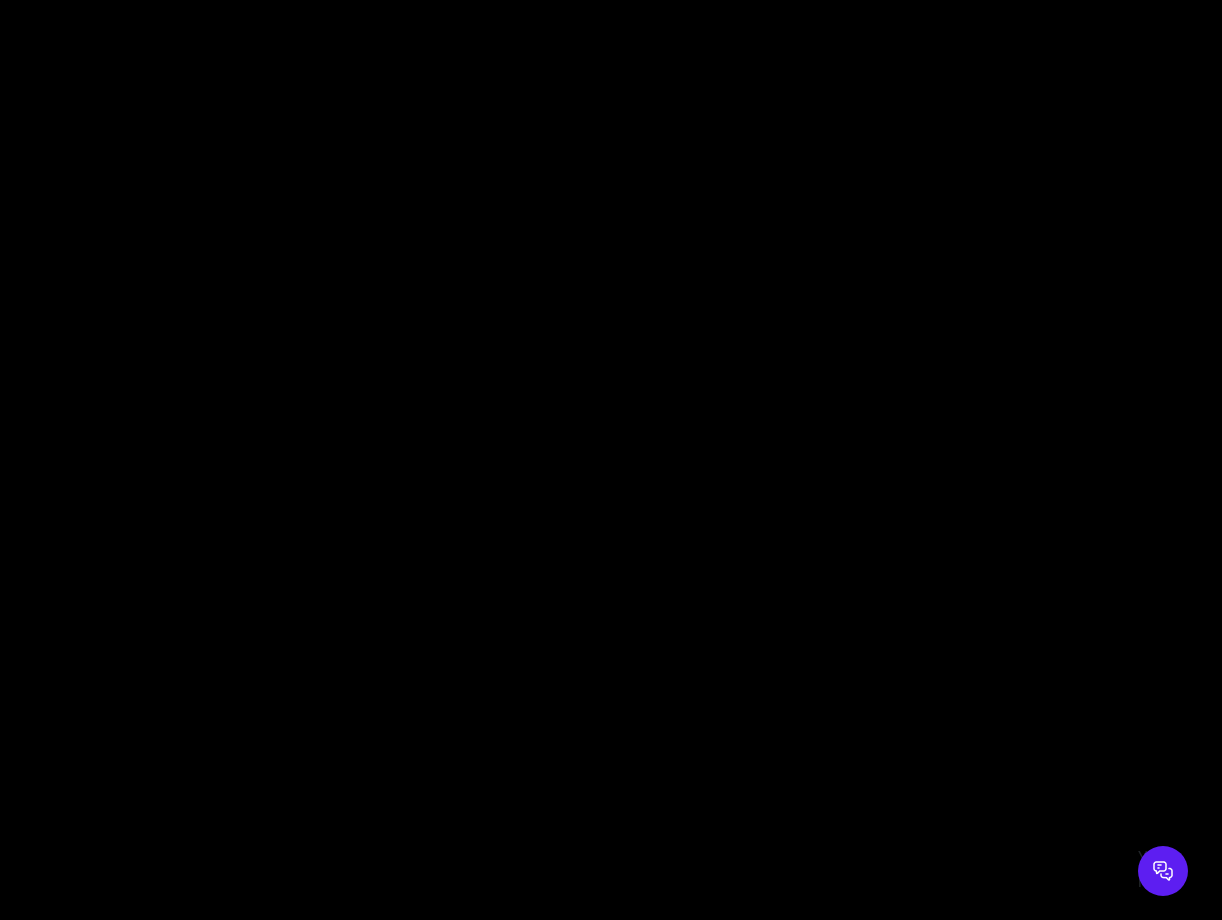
(async () => {
const canvas = document.querySelector("canvas")
canvas.width = 1222
canvas.height = 920
const c = canvas.getContext("2d")
c.miterLimit = 4
c.fontKerning = "normal"
function R(x,y,w,h){c.fillRect(x,y,w,h)}
async function I(src,x,y,w,h){const img=new Image();img.src=src;await img.decode();c.drawImage(img,x,y,w,h)}
c.fillStyle="#000"
R(0,0,1222,920)
await I("1.png",1138,846,50,50)
})()
